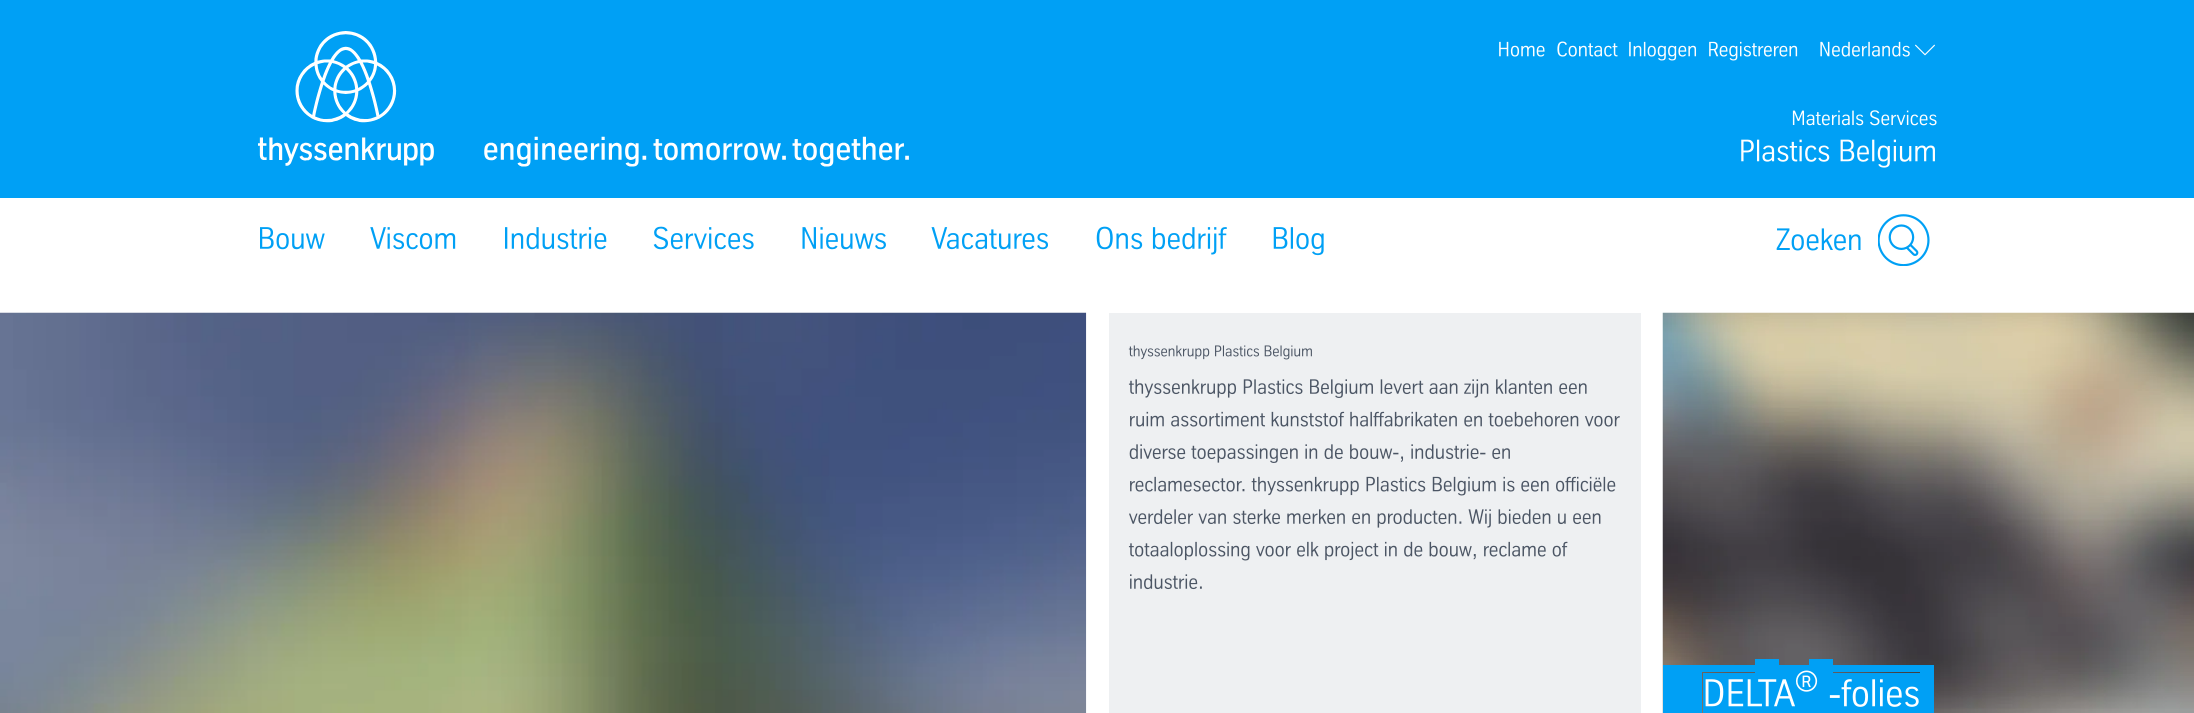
(async () => {
const canvas = document.querySelector("canvas")
canvas.width = 2194
canvas.height = 713
const c = canvas.getContext("2d")
c.miterLimit = 4
c.fontKerning = "normal"
function R(x,y,w,h){c.fillRect(x,y,w,h)}
async function I(src,x,y,w,h){const img=new Image();img.src=src;await img.decode();c.drawImage(img,x,y,w,h)}
let path
c.fillStyle="#fff"
R(0,0,2194,713)
c.fillStyle="#00a0f5"
R(0,0,2194,198)
await I("1.png",258,31,651,136)
await I("2.png",1499,41,46,16)
await I("3.png",1557,41,61,16)
await I("4.png",1629,41,68,20)
await I("5.png",1709,41,89,20)
await I("6.png",1820,41,90,16)
await I("7.png",1915,44,20,12)
await I("8.png",1792,110,145,16)
await I("9.png",1741,139,194,29)
await I("10.png",260,227,65,23)
await I("11.png",370,227,86,23)
await I("12.png",505,227,102,23)
await I("13.png",653,226,101,24)
await I("14.png",802,227,84,23)
await I("15.png",931,227,117,23)
await I("16.png",1096,226,131,29)
await I("17.png",1273,227,51,29)
await I("18.png",1776,228,85,23)
await I("19.png",1878,214,52,52)
await I("20.png",0,312,1087,401)
c.fillStyle="#eef0f2"
R(1109,313,532,400)
await I("21.png",1128,345,184,15)
await I("22.png",1128,379,459,19)
await I("23.png",1130,411,490,16)
await I("24.png",1129,444,381,19)
await I("25.png",1130,476,486,20)
await I("26.png",1129,509,472,19)
await I("27.png",1128,541,440,20)
await I("28.png",1130,574,72,16)
await I("29.png",1662,312,532,401)
c.fillStyle="#00a0f5"
path = new Path2D("M1663 680v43h92v-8h-53v-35z")
c.fill(path)
path = new Path2D("M1663 665v43h39v-36h53v-7z")
c.fill(path)
R(1755,659,24,14)
path = new Path2D("M1809 659v7h10v24h14v-31z")
c.fill(path)
path = new Path2D("M1833 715v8h101v-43h-14v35z")
c.fill(path)
path = new Path2D("M1833 665v7h87v36h14v-43z")
c.fill(path)
path = new Path2D("M1779 680v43h101v-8h-61v-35z")
c.fill(path)
path = new Path2D("M1779 665v43h40v-36h61v-7z")
c.fill(path)
R(1703,673,76,40)
await I("30.png",1796,670,22,22)
R(1819,673,101,40)
await I("31.png",1705,679,90,28)
await I("32.png",1829,679,90,28)
})()
